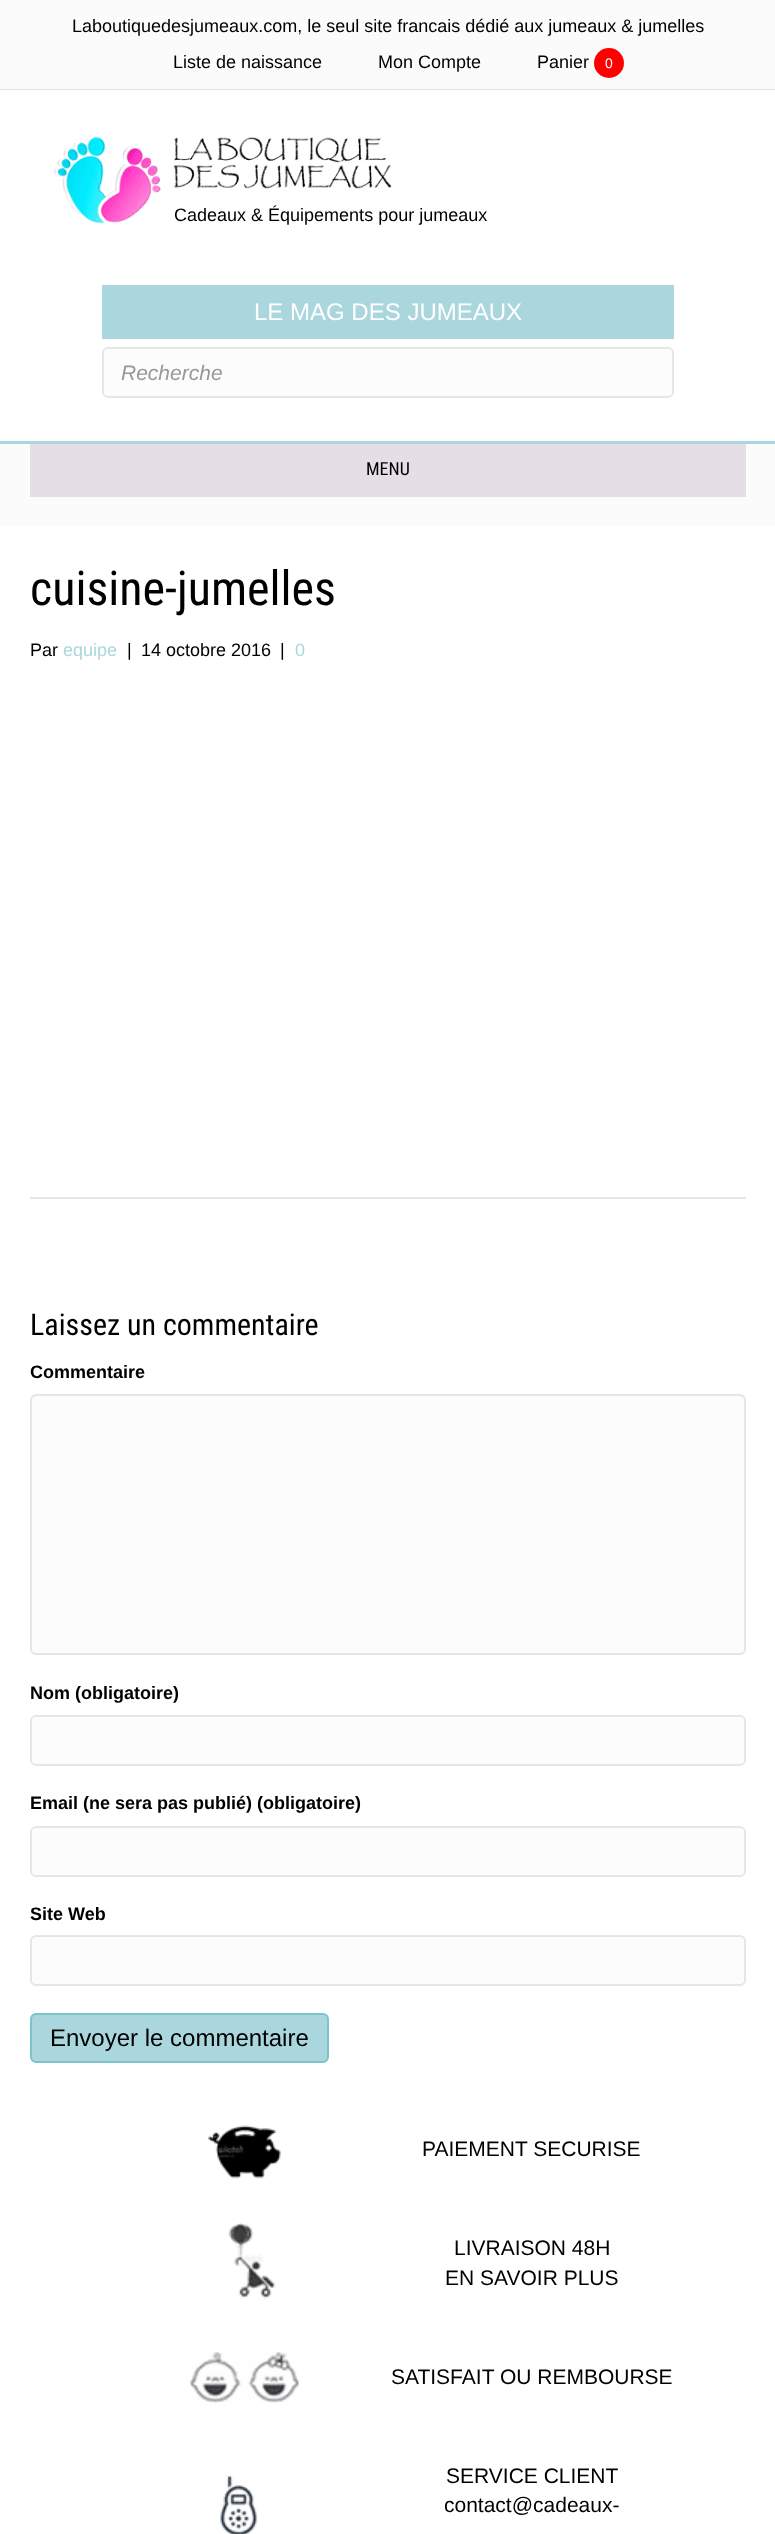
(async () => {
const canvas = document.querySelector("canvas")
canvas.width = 775
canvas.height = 2534
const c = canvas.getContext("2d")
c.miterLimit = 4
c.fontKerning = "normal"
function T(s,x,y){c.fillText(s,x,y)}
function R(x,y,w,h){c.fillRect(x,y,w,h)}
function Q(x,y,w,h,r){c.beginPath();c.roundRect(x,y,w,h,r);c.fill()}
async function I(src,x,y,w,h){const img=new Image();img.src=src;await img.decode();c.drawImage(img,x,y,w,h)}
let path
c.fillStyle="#fcfbfc"
R(0,0,775,2534)
c.fillStyle="#e6dee6"
R(0,89,775,1)
c.font="18px Liberation Sans"
c.fillStyle="#000"
T("Laboutiquedesjumeaux.com, le seul site francais dédié aux jumeaux & jumelles",72,32)
T("Liste de naissance",173,68)
T("Mon Compte",378,68)
T("Panier",537,68)
c.fillStyle="#f00"
c.beginPath()
c.arc(609,63,15,0,7)
c.fill()
c.font="14px Liberation Sans"
c.fillStyle="#fff"
T("0",605,68)
R(0,90,775,351)
await I("1.png",53,136,339,88)
c.font="18px Liberation Sans"
c.fillStyle="#000"
T("Cadeaux & Équipements pour jumeaux",174,221)
c.fillStyle="#aad7dd"
R(102,285,572,54)
c.font="24px Liberation Sans"
c.fillStyle="#fff"
T("LE MAG DES JUMEAUX",254,320)
c.fillStyle="#fcfcfc"
c.beginPath()
c.roundRect(103,348,570,49,5)
c.fill()
c.strokeStyle="#e6e6e6"
c.lineWidth=2
c.stroke()
c.font="italic 21px Liberation Sans"
c.fillStyle="#979898"
T("Recherche",121,380)
c.fillStyle="#aad7dd"
R(0,441,775,3)
c.fillStyle="#e6dee6"
R(30,444,716,53)
c.font="18px Roboto Condensed"
c.fillStyle="#000"
T("MENU",366,475)
c.fillStyle="#fff"
R(0,527,775,2007)
c.font="48px Roboto Condensed"
c.fillStyle="#000"
T("cuisine-jumelles",30,605)
c.font="18px Liberation Sans"
T("Par",30,656)
c.fillStyle="#aad7dd"
T("equipe",63,656)
c.fillStyle="#000"
T("|",127,656)
T("14 octobre 2016",141,656)
T("|",280,656)
c.fillStyle="#aad7dd"
T("0",295,656)
c.fillStyle="#e6e6e6"
R(30,1197,716,2)
c.font="30px Roboto Condensed"
c.fillStyle="#000"
T("Laissez un commentaire",30,1335)
c.font="bold 18px Liberation Sans"
T("Commentaire",30,1378)
c.fillStyle="#fcfcfc"
Q(30,1394,716,261,6)
c.fillStyle="#e9e9e9"
path = new Path2D("M36 1396h704c2 0 4 3 4 5c0-3-2-6-5-6h-702c-3 0-5 3-5 6c0-2 2-5 4-5z")
c.fill(path)
c.beginPath()
c.roundRect(31,1395,714,259,5)
c.stroke()
c.fillStyle="#000"
T("Nom (obligatoire)",30,1699)
c.fillStyle="#fcfcfc"
c.beginPath()
c.roundRect(31,1716,714,49,5)
c.fill()
c.stroke()
c.fillStyle="#000"
T("Email (ne sera pas publié) (obligatoire)",30,1809)
c.fillStyle="#fcfcfc"
c.beginPath()
c.roundRect(31,1827,714,49,5)
c.fill()
c.stroke()
c.fillStyle="#000"
T("Site Web",30,1920)
c.fillStyle="#fcfcfc"
c.beginPath()
c.roundRect(31,1936,714,49,5)
c.fill()
c.stroke()
c.fillStyle="#aad7dd"
c.beginPath()
c.roundRect(31,2014,297,48,5)
c.fill()
c.strokeStyle="#7ec2cc"
c.stroke()
c.font="24px Liberation Sans"
c.fillStyle="#000"
T("Envoyer le commentaire",50,2046)
await I("2.png",208,2125,73,54)
c.font="21px Liberation Sans"
T("PAIEMENT SECURISE",422,2156)
await I("3.png",228,2223,48,76)
T("LIVRAISON 48H",454,2255)
T("EN SAVOIR PLUS",445,2285)
await I("4.png",190,2351,109,53)
T("SATISFAIT OU REMBOURSE",391,2384)
await I("5.png",220,2475,38,59)
T("SERVICE CLIENT",446,2483)
T("contact@cadeaux-",444,2512)
})()
